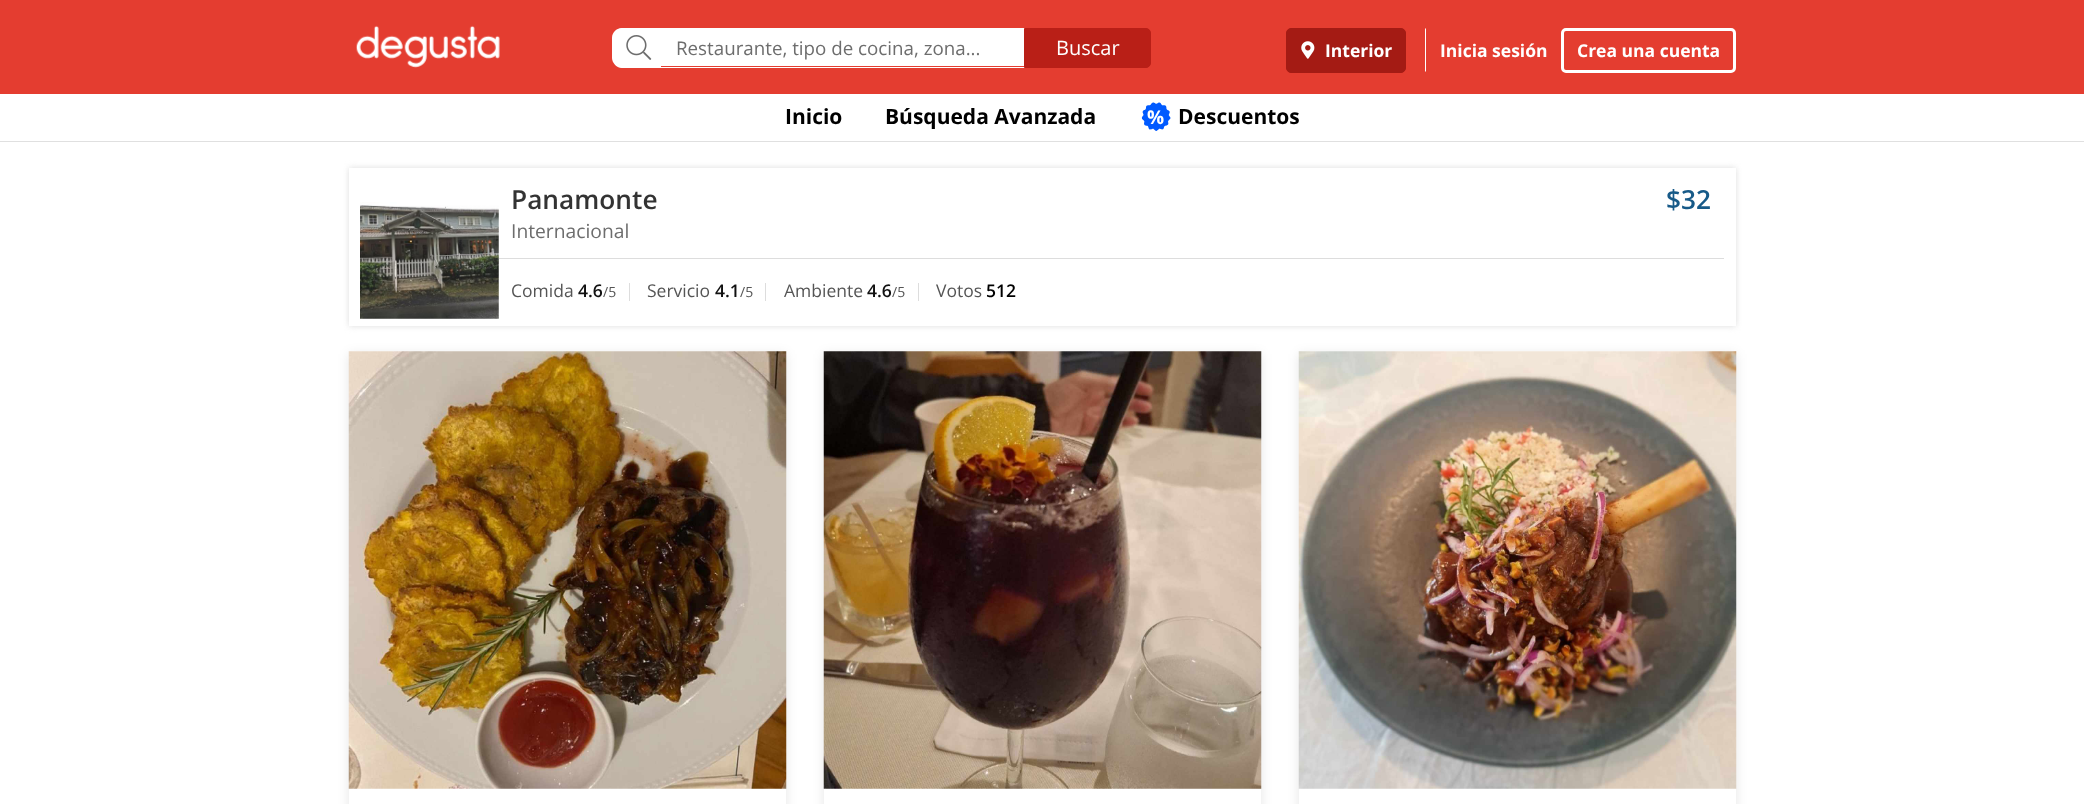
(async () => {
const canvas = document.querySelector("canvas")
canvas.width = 2084
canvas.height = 804
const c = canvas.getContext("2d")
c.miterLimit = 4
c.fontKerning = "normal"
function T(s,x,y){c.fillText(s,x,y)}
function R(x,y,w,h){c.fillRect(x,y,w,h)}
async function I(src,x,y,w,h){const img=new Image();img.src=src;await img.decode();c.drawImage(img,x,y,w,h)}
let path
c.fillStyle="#fff"
R(0,0,2084,804)
c.fillStyle="#e43d30"
R(0,0,2084,94)
await I("1.png",356,25,144,43)
c.fillStyle="#fff"
c.beginPath()
c.roundRect(613,28,47,40,[10,0,0,10])
c.fill()
path = new Path2D("M622 28h38v40h-38c-5 0-10-5-10-10v-20c0-6 5-10 10-10zm0 1h38v37h-38c-4 0-8-4-8-8v-20c0-5 4-9 8-9z")
c.fill(path,"evenodd")
await I("2.png",626,35,26,25)
R(661,29,363,37)
c.strokeStyle="#fff"
c.strokeRect(660.5,28.5,364,39)
c.font="18.75px Open Sans"
c.fillStyle="#6d6d6d"
T("Restaurante, tipo de cocina, zona...",676,55)
c.fillStyle="#b91f17"
c.beginPath()
c.roundRect(1024.5,28.5,126,39,[0,4.5,4.5,0])
c.fill()
c.strokeStyle="#b91f17"
c.stroke()
c.font="20px Open Sans"
c.fillStyle="#fff"
T("Buscar",1056,55)
c.fillStyle="#a41b14"
c.beginPath()
c.roundRect(1286.5,28.5,119,44,4.5)
c.fill()
c.strokeStyle="#a41b14"
c.stroke()
await I("3.png",1301,41,14,18)
c.font="bold 17.5px Open Sans"
c.fillStyle="#fff"
T("Interior",1325,57)
path = new Path2D("M1425 72v-44l1 1v42z")
c.fill(path)
T("Inicia sesión",1440,57)
c.beginPath()
c.roundRect(1562.5,29.5,172,42,3.5)
c.strokeStyle="#fff"
c.lineWidth=3
c.stroke()
T("Crea una cuenta",1577,57)
c.fillStyle="#e0e0e0"
R(0,141,2084,1)
c.font="bold 21px Open Sans"
c.fillStyle="#000"
T("Inicio",785,124)
T("Búsqueda Avanzada",885,124)
await I("4.png",1141,102,30,29)
c.font="bold 19px Open Sans"
c.fillStyle="#fff"
T("%",1147,124)
c.font="bold 21px Open Sans"
c.fillStyle="#000"
T("Descuentos",1178,124)
c.save()
path = new Path2D("M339 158h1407v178h-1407zm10 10h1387v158h-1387z")
c.clip(path,"evenodd")
c.fillStyle="#ddd"
c.filter="blur(3px)"
c.beginPath()
c.rect(349,168,1387,158)
c.fill()
c.filter="none"
c.restore()
await I("5.png",360,202,139,117)
c.font="600 26.25px Open Sans"
c.fillStyle="#333"
T("Panamonte",511,209)
c.font="19.25px Open Sans"
c.fillStyle="#6d6d6d"
T("Internacional",511,238)
c.font="600 26.25px Open Sans"
c.fillStyle="#175a88"
T("$32",1666,209)
c.fillStyle="#ddd"
R(499,258,1225,1)
c.font="17.5px Open Sans"
c.fillStyle="#555"
T("Comida",511,297)
c.font="600 17.5px Open Sans"
c.fillStyle="#111"
T("4.6",578,297)
c.font="14px Open Sans"
c.fillStyle="#555"
T("/5",603,297)
c.fillStyle="#ddd"
R(629,283,1,18)
c.font="17.5px Open Sans"
c.fillStyle="#555"
T("Servicio",647,297)
c.font="600 17.5px Open Sans"
c.fillStyle="#111"
T("4.1",715,297)
c.font="14px Open Sans"
c.fillStyle="#555"
T("/5",740,297)
c.fillStyle="#ddd"
R(765,283,1,18)
c.font="17.5px Open Sans"
c.fillStyle="#555"
T("Ambiente",784,297)
c.font="600 17.5px Open Sans"
c.fillStyle="#111"
T("4.6",867,297)
c.font="14px Open Sans"
c.fillStyle="#555"
T("/5",892,297)
c.fillStyle="#ddd"
R(918,283,1,18)
c.font="17.5px Open Sans"
c.fillStyle="#555"
T("Votos",936,297)
c.font="600 17.5px Open Sans"
c.fillStyle="#000"
T("512",986,297)
c.save()
path = new Path2D("M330 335h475v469h-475zm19 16h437v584h-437z")
c.clip(path,"evenodd")
c.fillStyle="#0000001a"
c.filter="blur(6px)"
c.beginPath()
c.rect(349,354,437,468)
c.fill()
c.filter="none"
c.restore()
await I("6.png",348,351,439,438)
c.save()
path = new Path2D("M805 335h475v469h-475zm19 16h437v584h-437z")
c.clip(path,"evenodd")
c.fillStyle="#0000001a"
c.filter="blur(6px)"
c.beginPath()
c.rect(824,354,437,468)
c.fill()
c.filter="none"
c.restore()
await I("7.png",823,351,439,438)
c.save()
path = new Path2D("M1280 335h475v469h-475zm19 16h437v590h-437z")
c.clip(path,"evenodd")
c.fillStyle="#0000001a"
c.filter="blur(6px)"
c.beginPath()
c.rect(1299,354,437,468)
c.fill()
c.filter="none"
c.restore()
await I("8.png",1298,351,439,438)
})()
